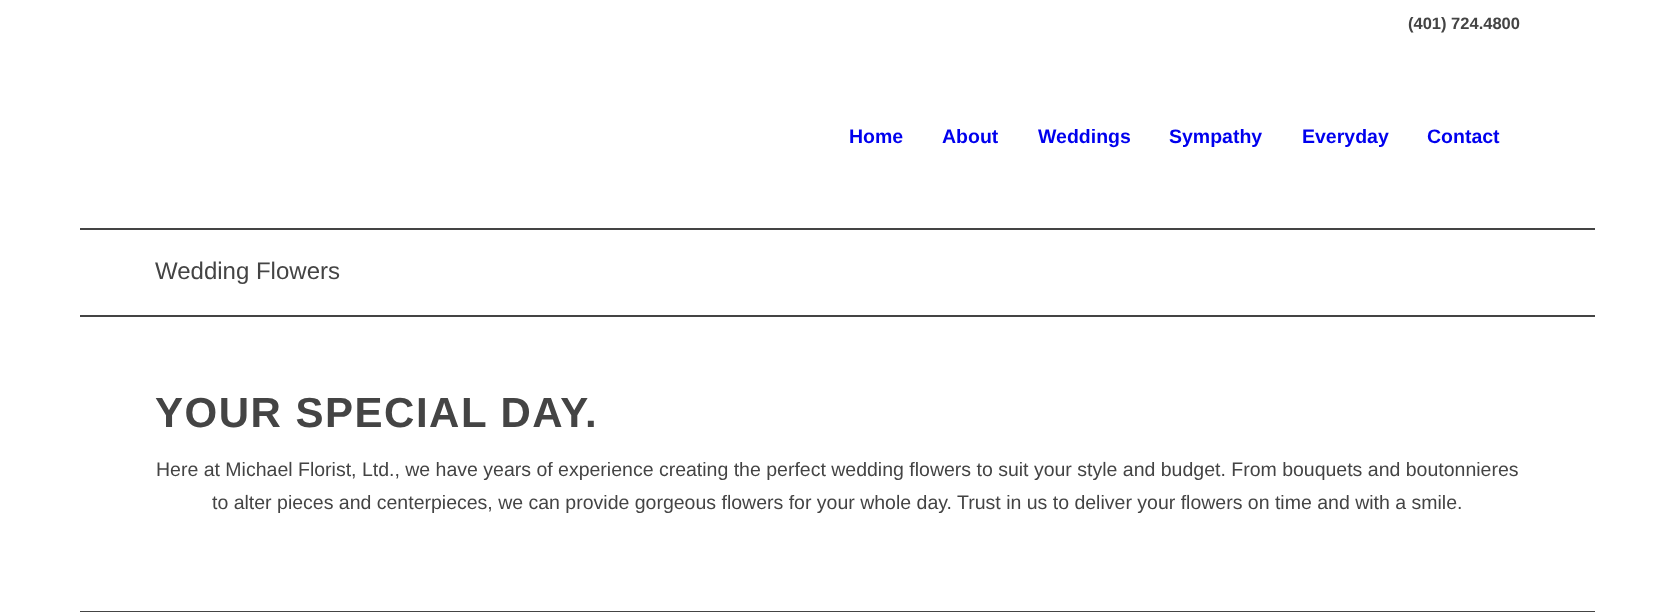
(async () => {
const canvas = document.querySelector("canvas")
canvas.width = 1673
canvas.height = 612
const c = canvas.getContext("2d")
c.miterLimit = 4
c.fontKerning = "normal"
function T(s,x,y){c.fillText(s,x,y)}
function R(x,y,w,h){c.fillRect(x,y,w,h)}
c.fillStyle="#fff"
R(0,0,1673,612)
c.font="bold 16.5px Liberation Sans"
c.fillStyle="#444"
T("(401) 724.4800",1408,29)
c.font="bold 19.5px Liberation Sans"
c.fillStyle="#00e"
T("Home",849,143)
T("About",942,143)
T("Weddings",1038,143)
T("Sympathy",1169,143)
T("Everyday",1302,143)
T("Contact",1427,143)
c.fillStyle="#444"
R(80,228,1515,2)
c.font="24px Liberation Sans"
T("Wedding Flowers",155,279)
R(80,315,1515,2)
c.letterSpacing="1.5px"
c.font="bold 42px Liberation Sans"
T("YOUR SPECIAL DAY.",155,427)
c.letterSpacing="0px"
c.font="19.5px Liberation Sans"
T("Here at Michael Florist, Ltd., we have years of experience creating the perfect wedding flowers to suit your style and budget. From bouquets and boutonnieres",156,476)
T("to alter pieces and centerpieces, we can provide gorgeous flowers for your whole day. Trust in us to deliver your flowers on time and with a smile.",212,509)
R(80,611,1515,1)
})()
